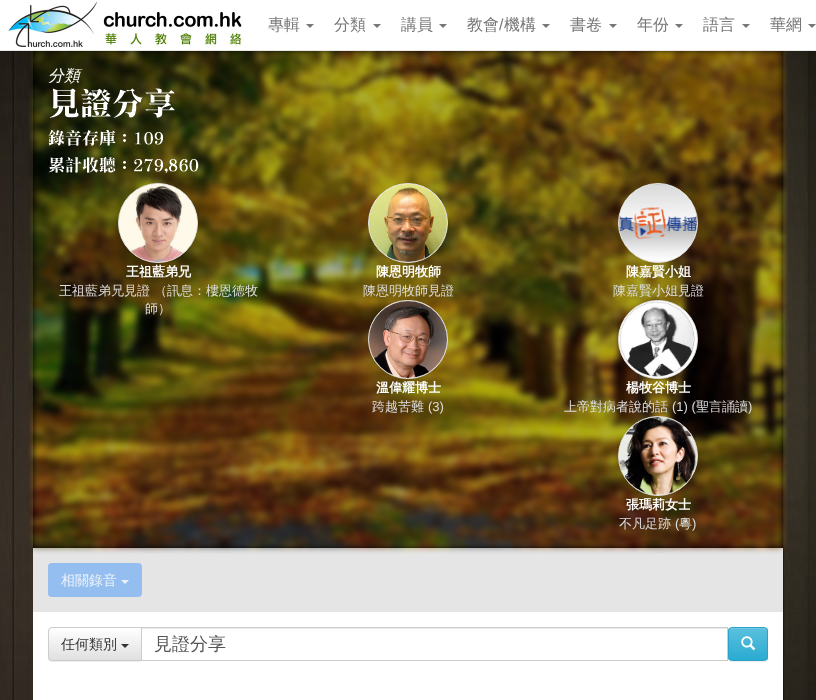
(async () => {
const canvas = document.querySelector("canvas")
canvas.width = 816
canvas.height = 700
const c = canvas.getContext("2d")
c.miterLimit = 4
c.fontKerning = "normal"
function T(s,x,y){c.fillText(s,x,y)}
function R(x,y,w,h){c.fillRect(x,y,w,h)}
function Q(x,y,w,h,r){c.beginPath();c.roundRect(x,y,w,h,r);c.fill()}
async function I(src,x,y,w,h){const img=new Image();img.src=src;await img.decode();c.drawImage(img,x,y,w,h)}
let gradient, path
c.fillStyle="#fff"
R(0,0,816,700)
await I("1.png",0,51,816,649)
c.fillStyle="#000"
R(33,51,750,497)
c.fillStyle="#e5e5e5"
R(33,548,750,64)
await I("3.png",28,51,761,503)
c.fillStyle="#00000012"
c.filter="blur(2.5px)"
c.beginPath()
c.rect(0,1,816,51)
c.fill()
c.filter="none"
c.fillStyle="#e7e7e7"
R(0,50,816,1)
c.fillStyle="#fff"
R(0,0,816,50)
await I("2.png",8,1,236,46)
c.font="500 16px WenQuanYi Zen Hei"
c.fillStyle="#777"
T("專輯",268,30)
path = new Path2D("M306 24h8l-4 4z")
c.fill(path)
T("分類",334,30)
path = new Path2D("M373 24h8l-4 4z")
c.fill(path)
T("講員",401,30)
path = new Path2D("M439 24h8l-4 4z")
c.fill(path)
T("教會",467,30)
c.font="16px Liberation Sans"
T("/",499,30)
c.font="500 16px WenQuanYi Zen Hei"
T("機構",504,30)
path = new Path2D("M542 24h8l-4 4z")
c.fill(path)
T("書卷",570,30)
path = new Path2D("M609 24h8l-4 4z")
c.fill(path)
T("年份",637,30)
path = new Path2D("M675 24h8l-4 4z")
c.fill(path)
T("語言",703,30)
path = new Path2D("M742 24h8l-4 4z")
c.fill(path)
T("華網",770,30)
path = new Path2D("M808 24h8l-4 4z")
c.fill(path)
c.font="italic 500 16px WenQuanYi Zen Hei"
c.fillStyle="#fff"
T("分類",48,81)
await I("4.png",49,88,30,30)
await I("5.png",81,88,30,30)
await I("6.png",113,88,30,30)
await I("7.png",145,88,30,30)
await I("8.png",48,130,17,16)
await I("9.png",65,130,17,16)
await I("10.png",82,130,17,16)
await I("11.png",99,130,17,16)
await I("12.png",123,134,3,8)
await I("13.png",135,132,28,13)
await I("14.png",48,157,16,16)
await I("15.png",65,157,17,16)
await I("16.png",82,157,17,16)
await I("17.png",99,156,17,17)
await I("18.png",123,161,3,8)
await I("19.png",134,159,34,14)
await I("20.png",169,159,30,13)
c.fillStyle="#00000012"
c.filter="blur(1px)"
c.beginPath()
c.roundRect(118,184,80,80,40)
c.fill()
c.filter="none"
c.fillStyle="#fff"
c.beginPath()
c.arc(158,223,39.5,0,7)
c.fill()
c.strokeStyle="#ddd"
c.stroke()
await I("21.png",119,184,78,78)
c.font="bold 13px WenQuanYi Zen Hei"
T("王祖藍弟兄",126,276)
c.font="500 13px WenQuanYi Zen Hei"
c.fillStyle="#ddd"
T("王祖藍弟兄見證 （訊息：樓恩德牧",59,295)
T("師）",145,313)
c.fillStyle="#00000012"
c.filter="blur(1px)"
c.beginPath()
c.roundRect(368,184,80,80,40)
c.fill()
c.filter="none"
c.fillStyle="#fff"
c.beginPath()
c.arc(408,223,39.5,0,7)
c.fill()
c.stroke()
await I("22.png",369,184,78,78)
c.font="bold 13px WenQuanYi Zen Hei"
T("陳恩明牧師",376,276)
c.font="500 13px WenQuanYi Zen Hei"
c.fillStyle="#ddd"
T("陳恩明牧師見證",363,295)
c.fillStyle="#fff"
c.beginPath()
c.arc(658,223,39.5,0,7)
c.fill()
c.stroke()
await I("23.png",619,184,78,78)
c.font="bold 13px WenQuanYi Zen Hei"
T("陳嘉賢小姐",626,276)
c.font="500 13px WenQuanYi Zen Hei"
c.fillStyle="#ddd"
T("陳嘉賢小姐見證",613,295)
c.fillStyle="#00000012"
c.filter="blur(1px)"
c.beginPath()
c.roundRect(368,301,80,79,39.5)
c.fill()
c.filter="none"
c.fillStyle="#fff"
c.beginPath()
c.roundRect(368.5,300.5,79,78,39)
c.fill()
c.stroke()
await I("24.png",369,301,78,77)
c.font="bold 13px WenQuanYi Zen Hei"
T("溫偉耀博士",376,392)
c.font="500 13px WenQuanYi Zen Hei"
c.fillStyle="#ddd"
T("跨越苦難",372,411)
c.font="13px Liberation Sans"
T("(3)",428,411)
c.fillStyle="#00000012"
c.filter="blur(1px)"
c.beginPath()
c.roundRect(618,301,80,79,39.5)
c.fill()
c.filter="none"
c.fillStyle="#fff"
c.beginPath()
c.roundRect(618.5,300.5,79,78,39)
c.fill()
c.stroke()
await I("25.png",619,301,78,77)
c.font="bold 13px WenQuanYi Zen Hei"
T("楊牧谷博士",626,392)
c.font="500 13px WenQuanYi Zen Hei"
c.fillStyle="#ddd"
T("上帝對病者說的話",564,411)
c.font="13px Liberation Sans"
T("(1) (",672,411)
c.font="500 13px WenQuanYi Zen Hei"
T("聖言誦讀",696,411)
c.font="13px Liberation Sans"
T(")",748,411)
c.fillStyle="#00000012"
c.filter="blur(1px)"
c.beginPath()
c.roundRect(618,417,80,80,40)
c.fill()
c.filter="none"
c.fillStyle="#fff"
c.beginPath()
c.arc(658,456,39.5,0,7)
c.fill()
c.stroke()
await I("26.png",619,417,78,78)
c.font="bold 13px WenQuanYi Zen Hei"
T("張瑪莉女士",626,509)
c.font="500 13px WenQuanYi Zen Hei"
c.fillStyle="#ddd"
T("不凡足跡",619,528)
c.font="13px Liberation Sans"
T("(",675,528)
c.font="500 13px WenQuanYi Zen Hei"
T("粵",679,528)
c.font="13px Liberation Sans"
T(")",692,528)
c.fillStyle="#94beef"
Q(48,563,94,34,4)
c.font="500 14px WenQuanYi Zen Hei"
c.fillStyle="#e9f1fb"
T("相關錄音",61,585)
path = new Path2D("M121 580h8l-4 4z")
c.fill(path)
c.fillStyle="#fff"
R(33,612,750,88)
c.fillStyle="#00000012"
c.filter="blur(0.5px)"
c.beginPath()
c.roundRect(48,628,94,34,4)
c.fill()
c.filter="none"
c.save()
c.beginPath()
c.roundRect(48,627,94,34,[4,0,0,4])
c.clip()
gradient = c.createLinearGradient(95,628,95,660)
gradient.addColorStop(0,"#fff")
gradient.addColorStop(1,"#e0e0e0")
c.fillStyle = gradient
R(48,628,93,32)
c.restore()
c.beginPath()
c.roundRect(48.5,627.5,93,33,[3.5,0,0,3.5])
c.strokeStyle="#ccc"
c.stroke()
c.fillStyle="#333"
T("任何類別",61,649)
path = new Path2D("M121 644h8l-4 4z")
c.fill(path)
c.fillStyle="#00000012"
c.filter="blur(0.5px)"
c.beginPath()
c.roundRect(728,628,40,34,4)
c.fill()
c.filter="none"
c.fillStyle="#ececec"
R(142,628,585,1)
c.strokeRect(141.5,627.5,586,33)
c.font="500 18px WenQuanYi Zen Hei"
c.fillStyle="#555"
T("見證分享",154,650)
c.save()
c.beginPath()
c.roundRect(728,627,40,34,4)
c.clip()
gradient = c.createLinearGradient(748,628,748,660)
gradient.addColorStop(0,"#5bc0de")
gradient.addColorStop(1,"#2aabd2")
c.fillStyle = gradient
R(728,628,40,32)
c.restore()
c.fillStyle="#73c9e3"
path = new Path2D("M732 629h27c5.5 0 7.5 .5 8 2.5c0-5-4.5-3.5-8.5-3.5h-21c-3.5 0-8.5-1-8.5 3.5c.5-1.5 1.5-2.5 3-2.5z")
c.fill(path)
c.beginPath()
c.roundRect(728.5,627.5,39,33,3.5)
c.strokeStyle="#28a4c9"
c.stroke()
await I("27.png",741,636,15,15)
})()
